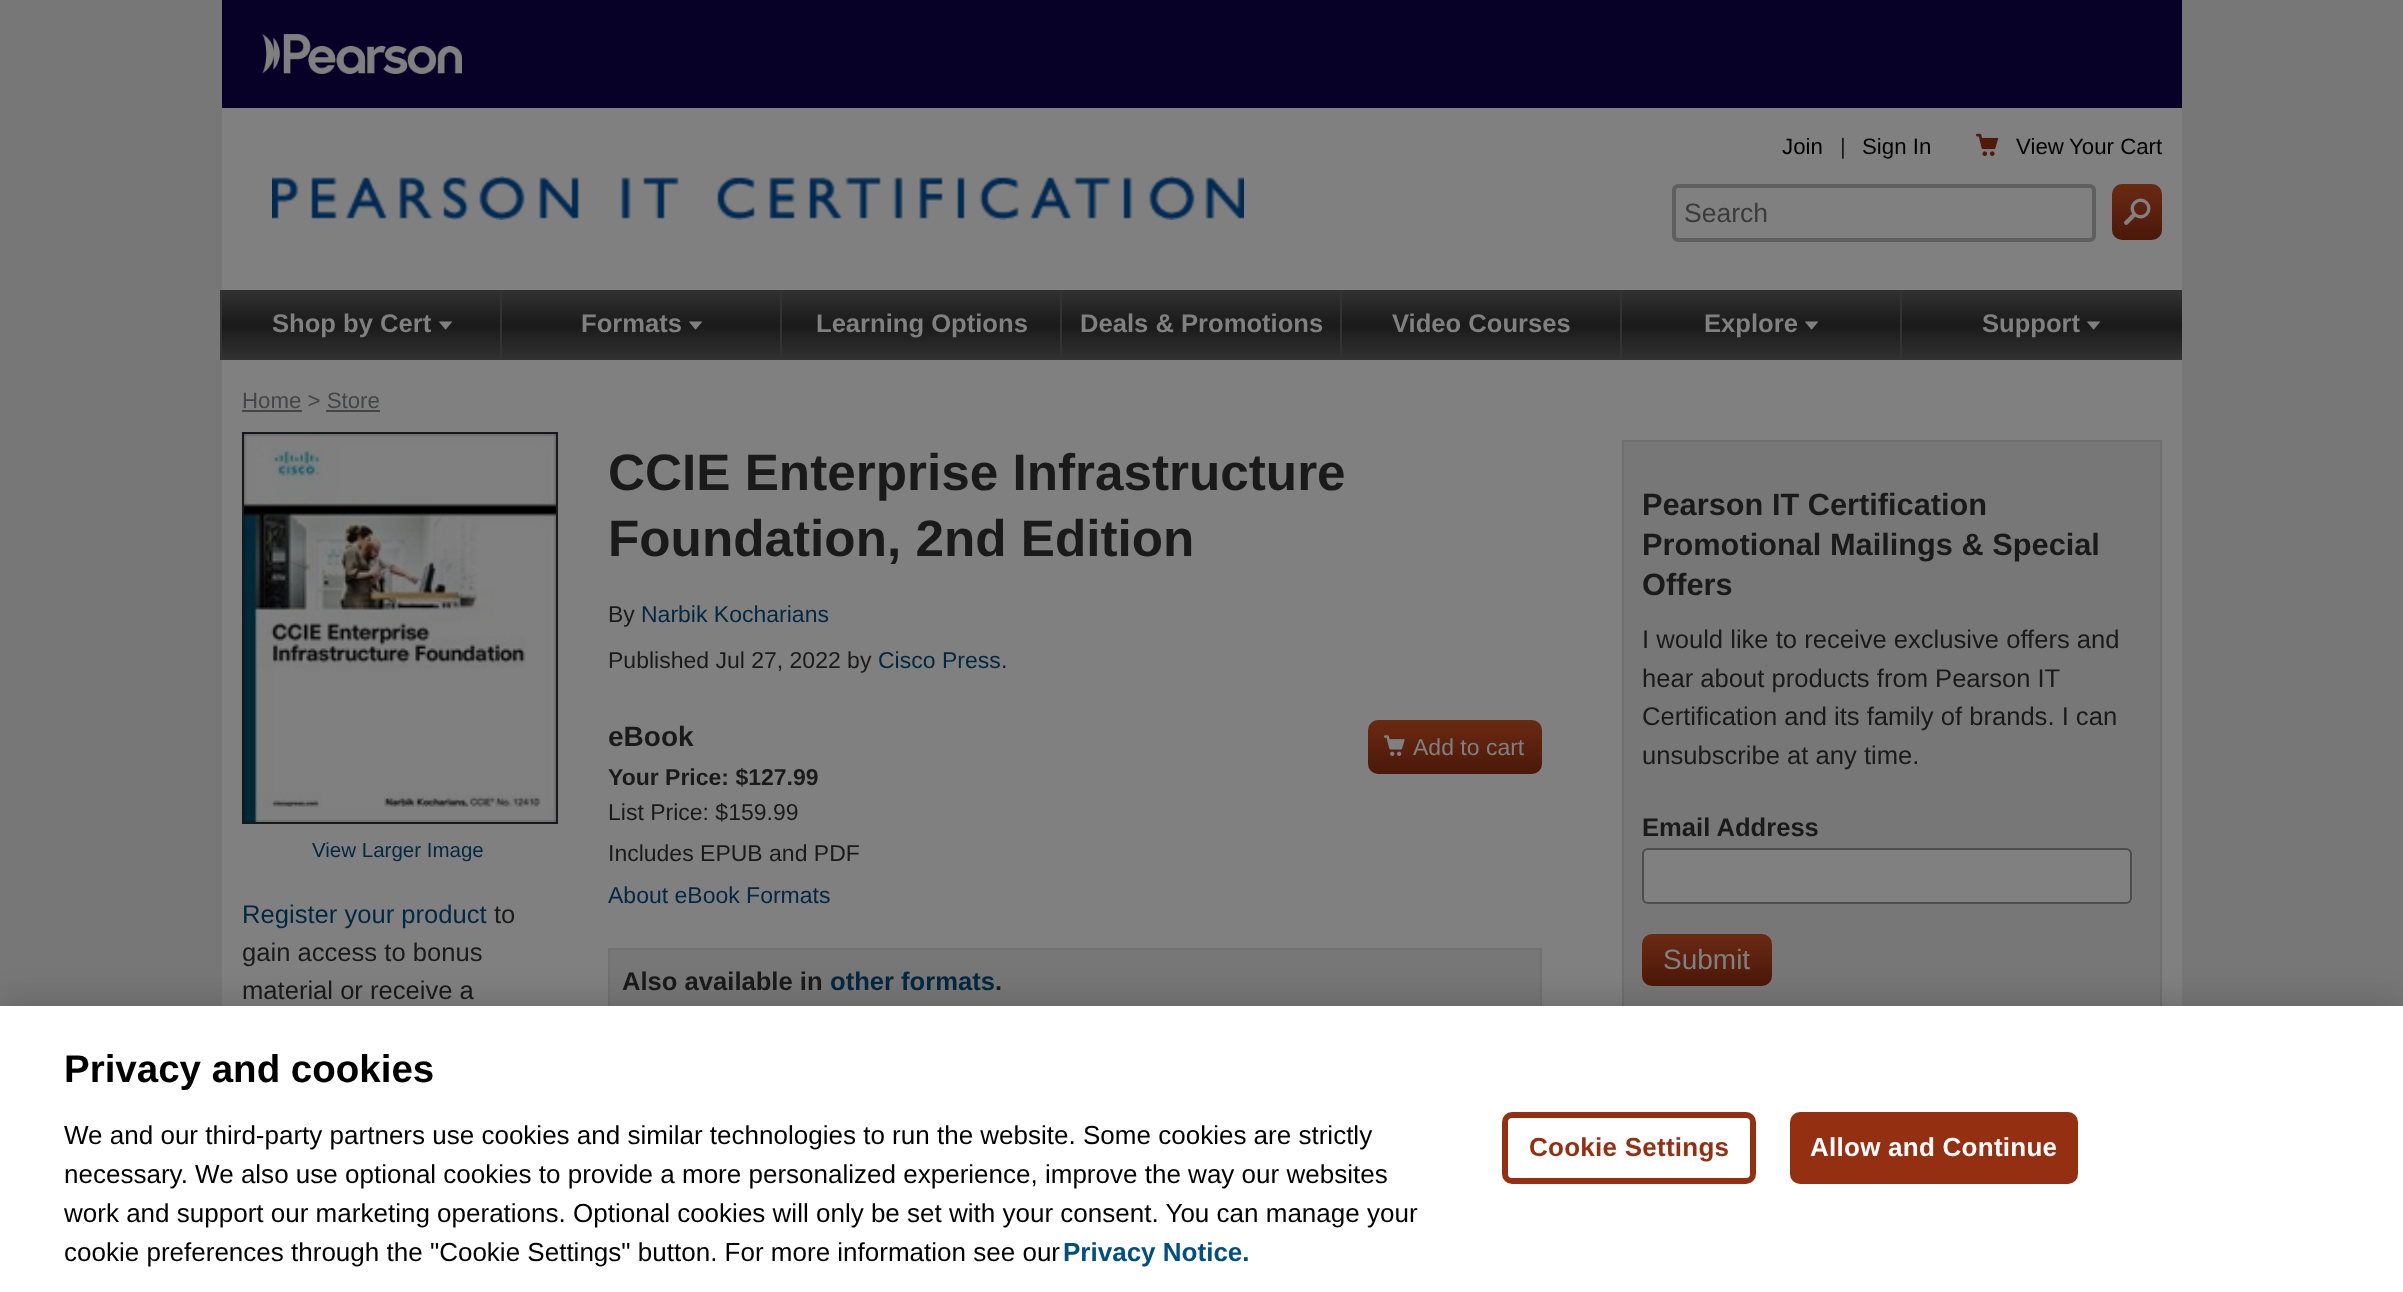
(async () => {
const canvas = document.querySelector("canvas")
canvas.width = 2403
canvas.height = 1292
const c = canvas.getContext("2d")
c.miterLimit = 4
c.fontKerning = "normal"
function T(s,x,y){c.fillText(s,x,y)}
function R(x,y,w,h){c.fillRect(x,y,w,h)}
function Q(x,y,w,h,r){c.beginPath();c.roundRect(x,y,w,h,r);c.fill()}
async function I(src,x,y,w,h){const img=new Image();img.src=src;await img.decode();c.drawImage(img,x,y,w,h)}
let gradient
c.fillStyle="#777"
R(0,0,2403,1292)
c.fillStyle="#070027"
R(222,0,1960,108)
await I("1.png",262,34,200,40)
c.fillStyle="#808080"
R(222,108,1960,898)
await I("2.png",272,176,972,44)
c.font="22.25px Liberation Sans"
c.fillStyle="#000"
T("Join",1782,154)
c.fillStyle="#1a1a1a"
T("|",1840,154)
c.fillStyle="#000"
T("Sign In",1862,154)
await I("3.png",1976,133,23,23)
T("View",2016,154)
T("Your Cart",2069,154)
c.beginPath()
c.roundRect(1674,186,420,54,4)
c.strokeStyle="#5f5f5f"
c.lineWidth=4
c.stroke()
c.font="26.5px Liberation Sans"
c.fillStyle="#3b3b3b"
T("Search",1684,222)
gradient = c.createLinearGradient(2137,184,2137,240)
gradient.addColorStop(0,"#6a2a13")
gradient.addColorStop(1,"#4b1809")
c.fillStyle = gradient
Q(2112,184,50,56,10)
c.font="26.5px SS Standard"
c.fillStyle="#808080"
T("🔎",2124,225)
gradient = c.createLinearGradient(1202,290,1202,360)
gradient.addColorStop(0,"#323232")
gradient.addColorStop(.5,"#1a1a1a")
gradient.addColorStop(1,"#323232")
c.fillStyle = gradient
R(222,290,1960,70)
c.fillStyle="#333"
R(220,290,2,70)
c.font="bold 25.6px Liberation Sans"
c.fillStyle="#808080"
T("Shop by Cert",272,332)
c.font="13px SS Standard"
T("▾",439,332)
c.fillStyle="#333"
R(500,290,2,70)
c.font="bold 25.6px Liberation Sans"
c.fillStyle="#808080"
T("Formats",581,332)
c.font="13px SS Standard"
T("▾",689,332)
c.fillStyle="#333"
R(780,290,2,66)
c.font="bold 25.6px Liberation Sans"
c.fillStyle="#808080"
T("Learning Options",816,332)
c.fillStyle="#333"
R(1060,290,2,66)
c.fillStyle="#808080"
T("Deals & Promotions",1080,332)
c.fillStyle="#333"
R(1340,290,2,66)
c.fillStyle="#808080"
T("Video Courses",1392,332)
c.fillStyle="#333"
R(1620,290,2,70)
c.fillStyle="#808080"
T("Explore",1704,332)
c.font="13px SS Standard"
T("▾",1805,332)
c.fillStyle="#333"
R(1900,290,2,70)
c.font="bold 25.6px Liberation Sans"
c.fillStyle="#808080"
T("Support",1982,332)
c.font="13px SS Standard"
T("▾",2087,332)
c.font="22.25px Liberation Sans"
c.fillStyle="#444547"
T("Home > Store",242,408)
R(242,410,60,2)
R(326,410,54,2)
c.strokeStyle="#15191a"
c.lineWidth=2
c.strokeRect(243,433,314,390)
await I("4.png",244,434,312,388)
c.font="20.5px Liberation Sans"
c.fillStyle="#002840"
T("View Larger Image",312,857)
c.font="25.6px Liberation Sans"
T("Register your product",242,923)
c.fillStyle="#1a1a1a"
T("to",494,923)
T("gain access to bonus",242,961)
T("material or receive a",242,999)
c.font="bold 51.25px Liberation Sans"
T("CCIE Enterprise Infrastructure",608,490)
T("Foundation, 2nd Edition",608,556)
c.font="23px Liberation Sans"
T("By",608,622)
c.fillStyle="#002840"
T("Narbik Kocharians",641,622)
c.fillStyle="#1a1a1a"
T("Published Jul 27, 2022 by",608,668)
c.fillStyle="#002840"
T("Cisco Press",878,668)
c.fillStyle="#1a1a1a"
T(".",1001,668)
c.font="bold 28px Liberation Sans"
T("eBook",608,746)
gradient = c.createLinearGradient(1455,720,1455,774)
gradient.addColorStop(0,"#6a2a13")
gradient.addColorStop(1,"#4b1809")
c.fillStyle = gradient
Q(1368,720,174,54,10)
await I("5.png",1384,735,21,21)
c.font="23px Liberation Sans"
c.fillStyle="#808080"
T("Add to cart",1413,755)
c.font="bold 23px Liberation Sans"
c.fillStyle="#1a1a1a"
T("Your Price: $127.99",608,785)
c.font="23px Liberation Sans"
T("List Price: $159.99",608,820)
T("Includes EPUB and PDF",608,861)
c.fillStyle="#002840"
T("About eBook Formats",608,903)
c.fillStyle="#777"
R(610,950,930,56)
c.strokeStyle="#717171"
c.strokeRect(609,949,932,66)
c.font="bold 25.6px Liberation Sans"
c.fillStyle="#1a1a1a"
T("Also available in",622,990)
c.fillStyle="#002840"
T("other formats",830,990)
c.fillStyle="#1a1a1a"
T(".",995,990)
c.fillStyle="#777"
R(1624,442,536,564)
c.strokeStyle="#6f6f6f"
c.strokeRect(1623,441,538,588)
c.font="bold 30.75px Liberation Sans"
c.fillStyle="#1a1a1a"
T("Pearson IT Certification",1642,515)
T("Promotional Mailings & Special",1642,555)
T("Offers",1642,595)
c.font="25.6px Liberation Sans"
T("I would like to receive exclusive offers and",1642,648)
T("hear about products from Pearson IT",1642,687)
T("Certification and its family of brands. I can",1642,725)
T("unsubscribe at any time.",1642,764)
c.font="bold 25.6px Liberation Sans"
T("Email Address",1642,836)
c.fillStyle="#808080"
c.beginPath()
c.roundRect(1643,849,488,54,5)
c.fill()
c.strokeStyle="#4d4d4d"
c.stroke()
gradient = c.createLinearGradient(1707,934,1707,986)
gradient.addColorStop(0,"#6a2a13")
gradient.addColorStop(1,"#4b1809")
c.fillStyle = gradient
Q(1642,934,130,52,10)
c.font="28px Liberation Sans"
c.fillStyle="#808080"
T("Submit",1663,969)
c.fillStyle="#00000033"
c.filter="blur(18px)"
c.beginPath()
c.rect(0,1006,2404,286)
c.fill()
c.filter="none"
c.fillStyle="#fff"
R(0,1006,2403,286)
c.font="bold 38.5px Liberation Sans"
c.fillStyle="#000"
T("Privacy and cookies",64,1082)
c.font="26.02px Liberation Sans"
T("We and our third-party partners use cookies and similar technologies to run the website. Some cookies are strictly",64,1144)
T("necessary. We also use optional cookies to provide a more personalized experience, improve the way our websites",64,1183)
T("work and support our marketing operations. Optional cookies will only be set with your consent. You can manage your",64,1222)
T("cookie preferences through the \"Cookie Settings\" button. For more information see our",64,1261)
c.font="bold 26.02px Liberation Sans"
c.fillStyle="#004f7f"
T("Privacy Notice.",1063,1261)
c.beginPath()
c.roundRect(1505,1115,248,66,7)
c.strokeStyle="#952f12"
c.lineWidth=6
c.stroke()
c.letterSpacing="0.25px"
c.fillStyle="#952f12"
T("Cookie Settings",1529,1156)
Q(1790,1112,288,72,10)
c.fillStyle="#fff"
T("Allow and Continue",1810,1156)
})()
